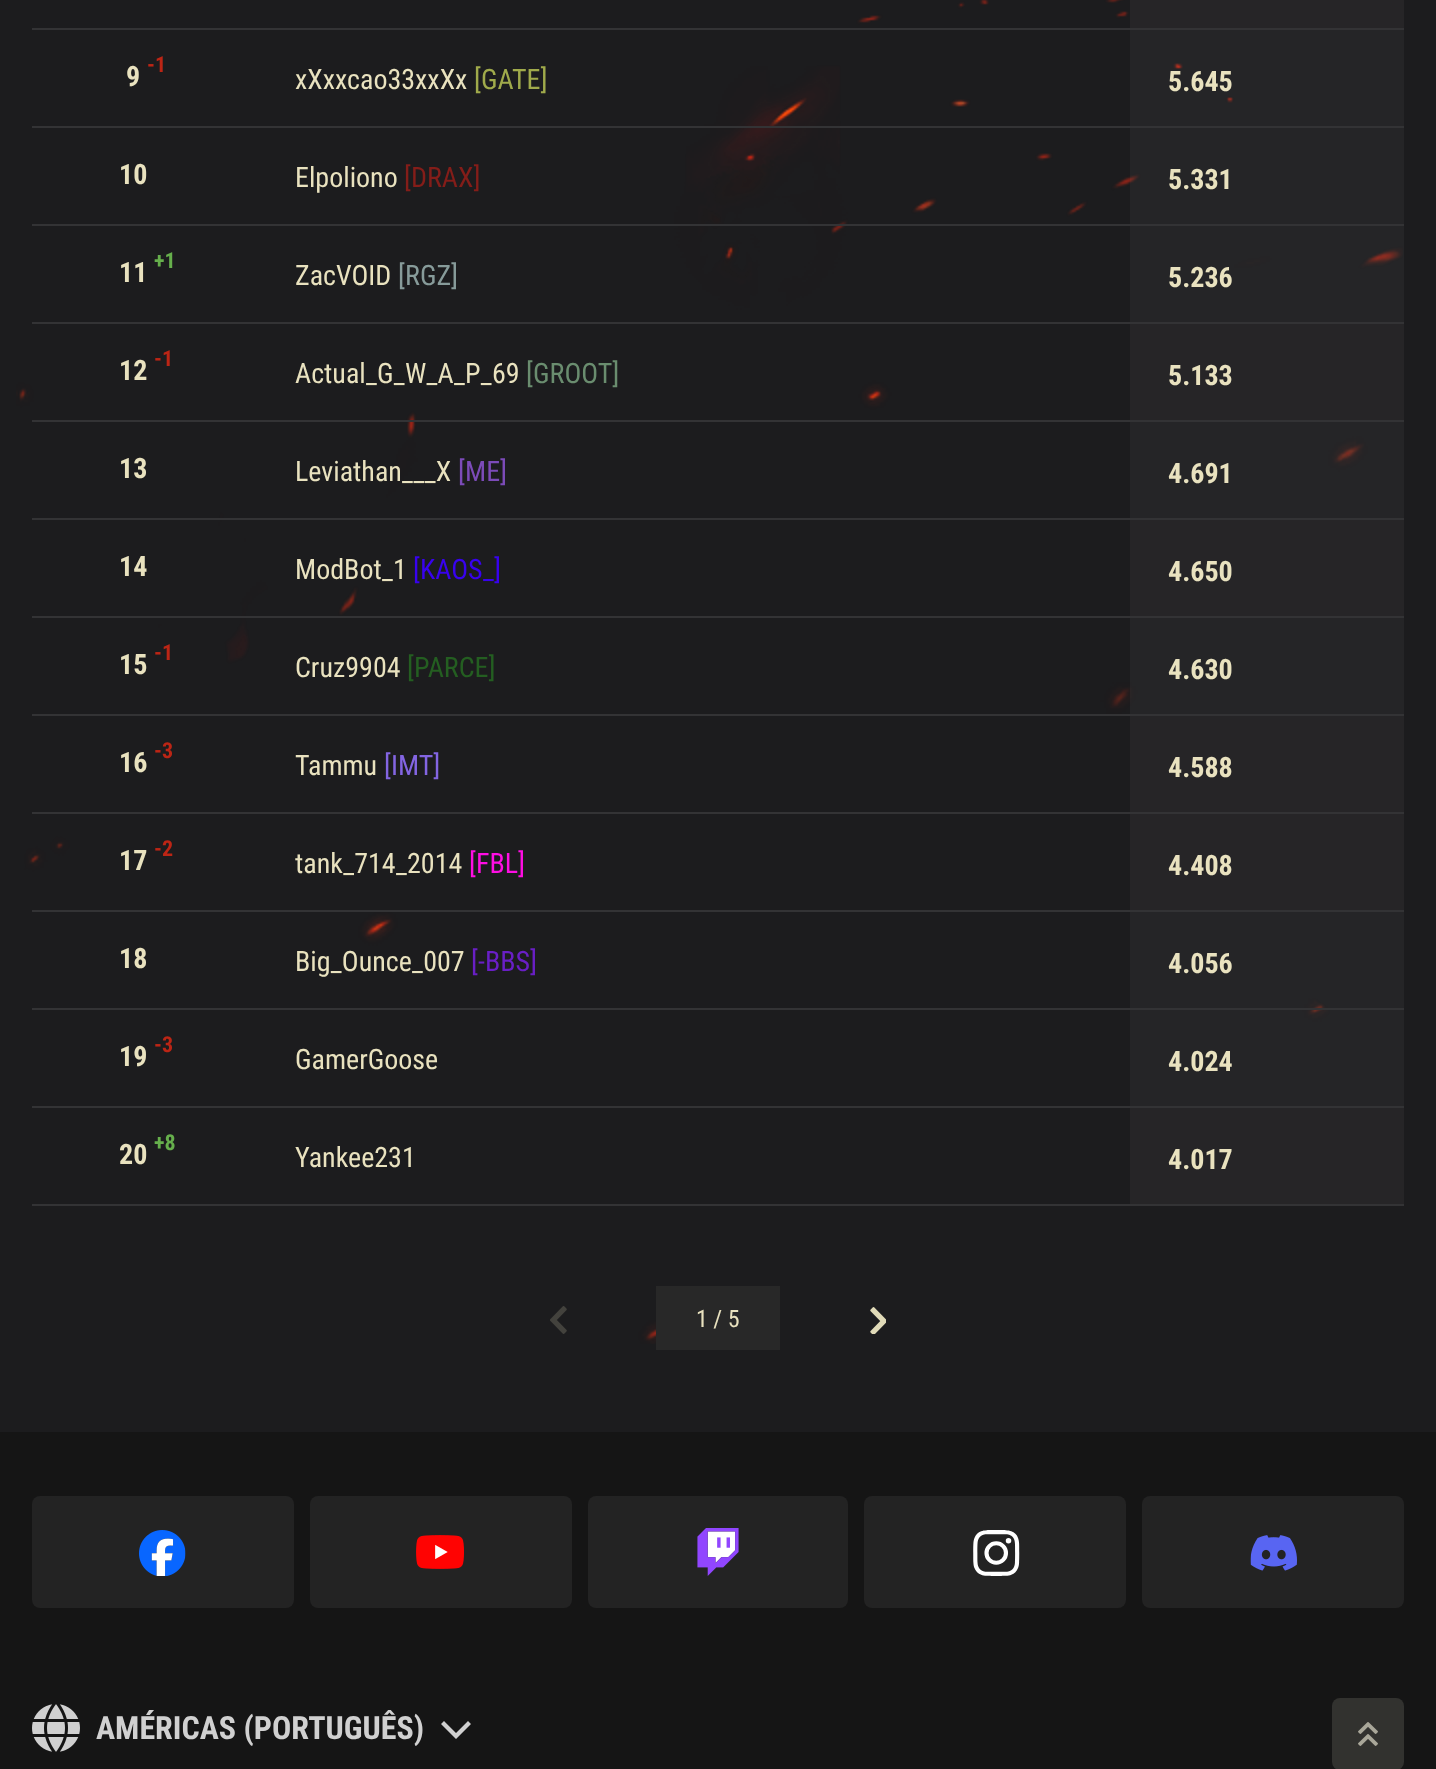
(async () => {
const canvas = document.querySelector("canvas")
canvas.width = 1436
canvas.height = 1769
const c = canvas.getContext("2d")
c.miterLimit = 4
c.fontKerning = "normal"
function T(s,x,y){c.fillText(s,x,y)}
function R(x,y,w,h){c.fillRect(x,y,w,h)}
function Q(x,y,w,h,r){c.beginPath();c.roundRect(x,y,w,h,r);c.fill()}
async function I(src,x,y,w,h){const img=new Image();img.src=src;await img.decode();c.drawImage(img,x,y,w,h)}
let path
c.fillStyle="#1c1c1e"
R(0,0,1436,1769)
await I("1.png",16,0,1387,1344)
c.fillStyle="#333335"
R(32,28,1372,2)
c.fillStyle="#262527"
R(1130,0,274,28)
c.fillStyle="#333335"
R(32,126,1372,2)
c.font="bold 28px Roboto Condensed"
c.fillStyle="#e9e2bf"
T("9",126,86)
c.font="bold 22px Roboto Condensed"
c.fillStyle="#bc2515"
T("-1",147,72)
c.font="28px Roboto Condensed"
c.fillStyle="#e9e2bf"
T("xXxxcao33xxXx",295,89)
c.fillStyle="#a0aa4b"
T("[GATE]",474,89)
c.fillStyle="#dad7d60d"
R(1130,30,274,96)
c.font="bold 28px Roboto Condensed"
c.fillStyle="#e9e2bf"
T("5.645",1168,91)
c.fillStyle="#333335"
R(32,224,1372,2)
c.fillStyle="#e9e2bf"
T("10",119,184)
c.font="28px Roboto Condensed"
T("Elpoliono",295,187)
c.fillStyle="#841d19"
T("[DRAX]",404,187)
c.fillStyle="#dad7d60d"
R(1130,128,274,96)
c.font="bold 28px Roboto Condensed"
c.fillStyle="#e9e2bf"
T("5.331",1168,189)
c.fillStyle="#333335"
R(32,322,1372,2)
c.font="bold 22px Roboto Condensed"
c.fillStyle="#66af4c"
T("+1",154,268)
c.font="bold 28px Roboto Condensed"
c.fillStyle="#e9e2bf"
T("11",119,282)
c.font="28px Roboto Condensed"
T("ZacVOID",295,285)
c.fillStyle="#879b9a"
T("[RGZ]",398,285)
c.fillStyle="#dad7d60d"
R(1130,226,274,96)
c.font="bold 28px Roboto Condensed"
c.fillStyle="#e9e2bf"
T("5.236",1168,287)
c.fillStyle="#333335"
R(32,420,1372,2)
c.fillStyle="#e9e2bf"
T("12",119,380)
c.font="bold 22px Roboto Condensed"
c.fillStyle="#bc2515"
T("-1",154,366)
c.font="28px Roboto Condensed"
c.fillStyle="#e9e2bf"
T("Actual_G_W_A_P_69",295,383)
c.fillStyle="#6a8d6f"
T("[GROOT]",526,383)
c.fillStyle="#262527"
R(1130,324,274,96)
c.font="bold 28px Roboto Condensed"
c.fillStyle="#e9e2bf"
T("5.133",1168,385)
c.fillStyle="#333335"
R(32,518,1372,2)
c.fillStyle="#e9e2bf"
T("13",119,478)
c.font="28px Roboto Condensed"
T("Leviathan___X",295,481)
c.fillStyle="#7c4bb9"
T("[ME]",458,481)
c.fillStyle="#dad7d60d"
R(1130,422,274,96)
c.font="bold 28px Roboto Condensed"
c.fillStyle="#e9e2bf"
T("4.691",1168,483)
c.fillStyle="#333335"
R(32,616,1372,2)
c.fillStyle="#e9e2bf"
T("14",119,576)
c.font="28px Roboto Condensed"
T("ModBot_1",295,579)
c.fillStyle="#3802ef"
T("[KAOS_]",413,579)
c.fillStyle="#262527"
R(1130,520,274,96)
c.font="bold 28px Roboto Condensed"
c.fillStyle="#e9e2bf"
T("4.650",1168,581)
c.fillStyle="#333335"
R(32,714,1372,2)
c.font="bold 22px Roboto Condensed"
c.fillStyle="#bc2515"
T("-1",154,660)
c.font="bold 28px Roboto Condensed"
c.fillStyle="#e9e2bf"
T("15",119,674)
c.font="28px Roboto Condensed"
T("Cruz9904",295,677)
c.fillStyle="#245e21"
T("[PARCE]",407,677)
c.fillStyle="#dad7d60d"
R(1130,618,274,96)
c.font="bold 28px Roboto Condensed"
c.fillStyle="#e9e2bf"
T("4.630",1168,679)
c.fillStyle="#333335"
R(32,812,1372,2)
c.fillStyle="#e9e2bf"
T("16",119,772)
c.font="bold 22px Roboto Condensed"
c.fillStyle="#bc2515"
T("-3",154,758)
c.font="28px Roboto Condensed"
c.fillStyle="#e9e2bf"
T("Tammu",295,775)
c.fillStyle="#8365e2"
T("[IMT]",384,775)
c.fillStyle="#262527"
R(1130,716,274,96)
c.font="bold 28px Roboto Condensed"
c.fillStyle="#e9e2bf"
T("4.588",1168,777)
c.fillStyle="#333335"
R(32,910,1372,2)
c.font="bold 22px Roboto Condensed"
c.fillStyle="#bc2515"
T("-2",154,856)
c.font="bold 28px Roboto Condensed"
c.fillStyle="#e9e2bf"
T("17",119,870)
c.font="28px Roboto Condensed"
T("tank_714_2014",295,873)
c.fillStyle="#ff0ee3"
T("[FBL]",469,873)
c.fillStyle="#262527"
R(1130,814,274,96)
c.font="bold 28px Roboto Condensed"
c.fillStyle="#e9e2bf"
T("4.408",1168,875)
c.fillStyle="#333335"
R(32,1008,1372,2)
c.fillStyle="#e9e2bf"
T("18",119,968)
c.font="28px Roboto Condensed"
T("Big_Ounce_007",295,971)
c.fillStyle="#691fc5"
T("[-BBS]",471,971)
c.fillStyle="#dad7d60d"
R(1130,912,274,96)
c.font="bold 28px Roboto Condensed"
c.fillStyle="#e9e2bf"
T("4.056",1168,973)
c.fillStyle="#333335"
R(32,1106,1372,2)
c.fillStyle="#e9e2bf"
T("19",119,1066)
c.font="bold 22px Roboto Condensed"
c.fillStyle="#bc2515"
T("-3",154,1052)
c.font="28px Roboto Condensed"
c.fillStyle="#e9e2bf"
T("GamerGoose",295,1069)
c.fillStyle="#dad7d60d"
R(1130,1010,274,96)
c.font="bold 28px Roboto Condensed"
c.fillStyle="#e9e2bf"
T("4.024",1168,1071)
c.fillStyle="#333335"
R(32,1204,1372,2)
c.fillStyle="#e9e2bf"
T("20",119,1164)
c.font="bold 22px Roboto Condensed"
c.fillStyle="#66af4c"
T("+8",154,1150)
c.font="28px Roboto Condensed"
c.fillStyle="#e9e2bf"
T("Yankee231",295,1167)
c.fillStyle="#262527"
R(1130,1108,274,96)
c.font="bold 28px Roboto Condensed"
c.fillStyle="#e9e2bf"
T("4.017",1168,1169)
await I("2.png",550,1306,17,28)
c.fillStyle="#282828"
R(656,1286,124,64)
c.font="24px Roboto Condensed"
c.fillStyle="#e9e2bf"
T("1 / 5",696,1327)
await I("3.png",870,1307,16,27)
c.fillStyle="#151515"
R(0,1432,1436,337)
c.fillStyle="#32322f"
Q(1332,1698,72,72,8)
await I("4.png",1358,1722,20,24)
c.fillStyle="#232323"
Q(32,1496,262,112,8)
await I("5.png",139,1530,47,46)
Q(310,1496,262,112,8)
await I("6.png",416,1535,48,34)
Q(588,1496,260,112,8)
await I("7.png",697,1528,42,48)
Q(864,1496,262,112,8)
await I("8.png",973,1530,47,46)
Q(1142,1496,262,112,8)
await I("9.png",1250,1535,47,36)
await I("10.png",32,1704,48,48)
c.font="bold 32px Roboto Condensed"
c.fillStyle="#d0d0d0"
T("AMÉRICAS (PORTUGUÊS)",96,1739)
path = new Path2D("M456 1739l15-15l-3-3l-12 12l-12-12l-3 3z")
c.fill(path)
})()
